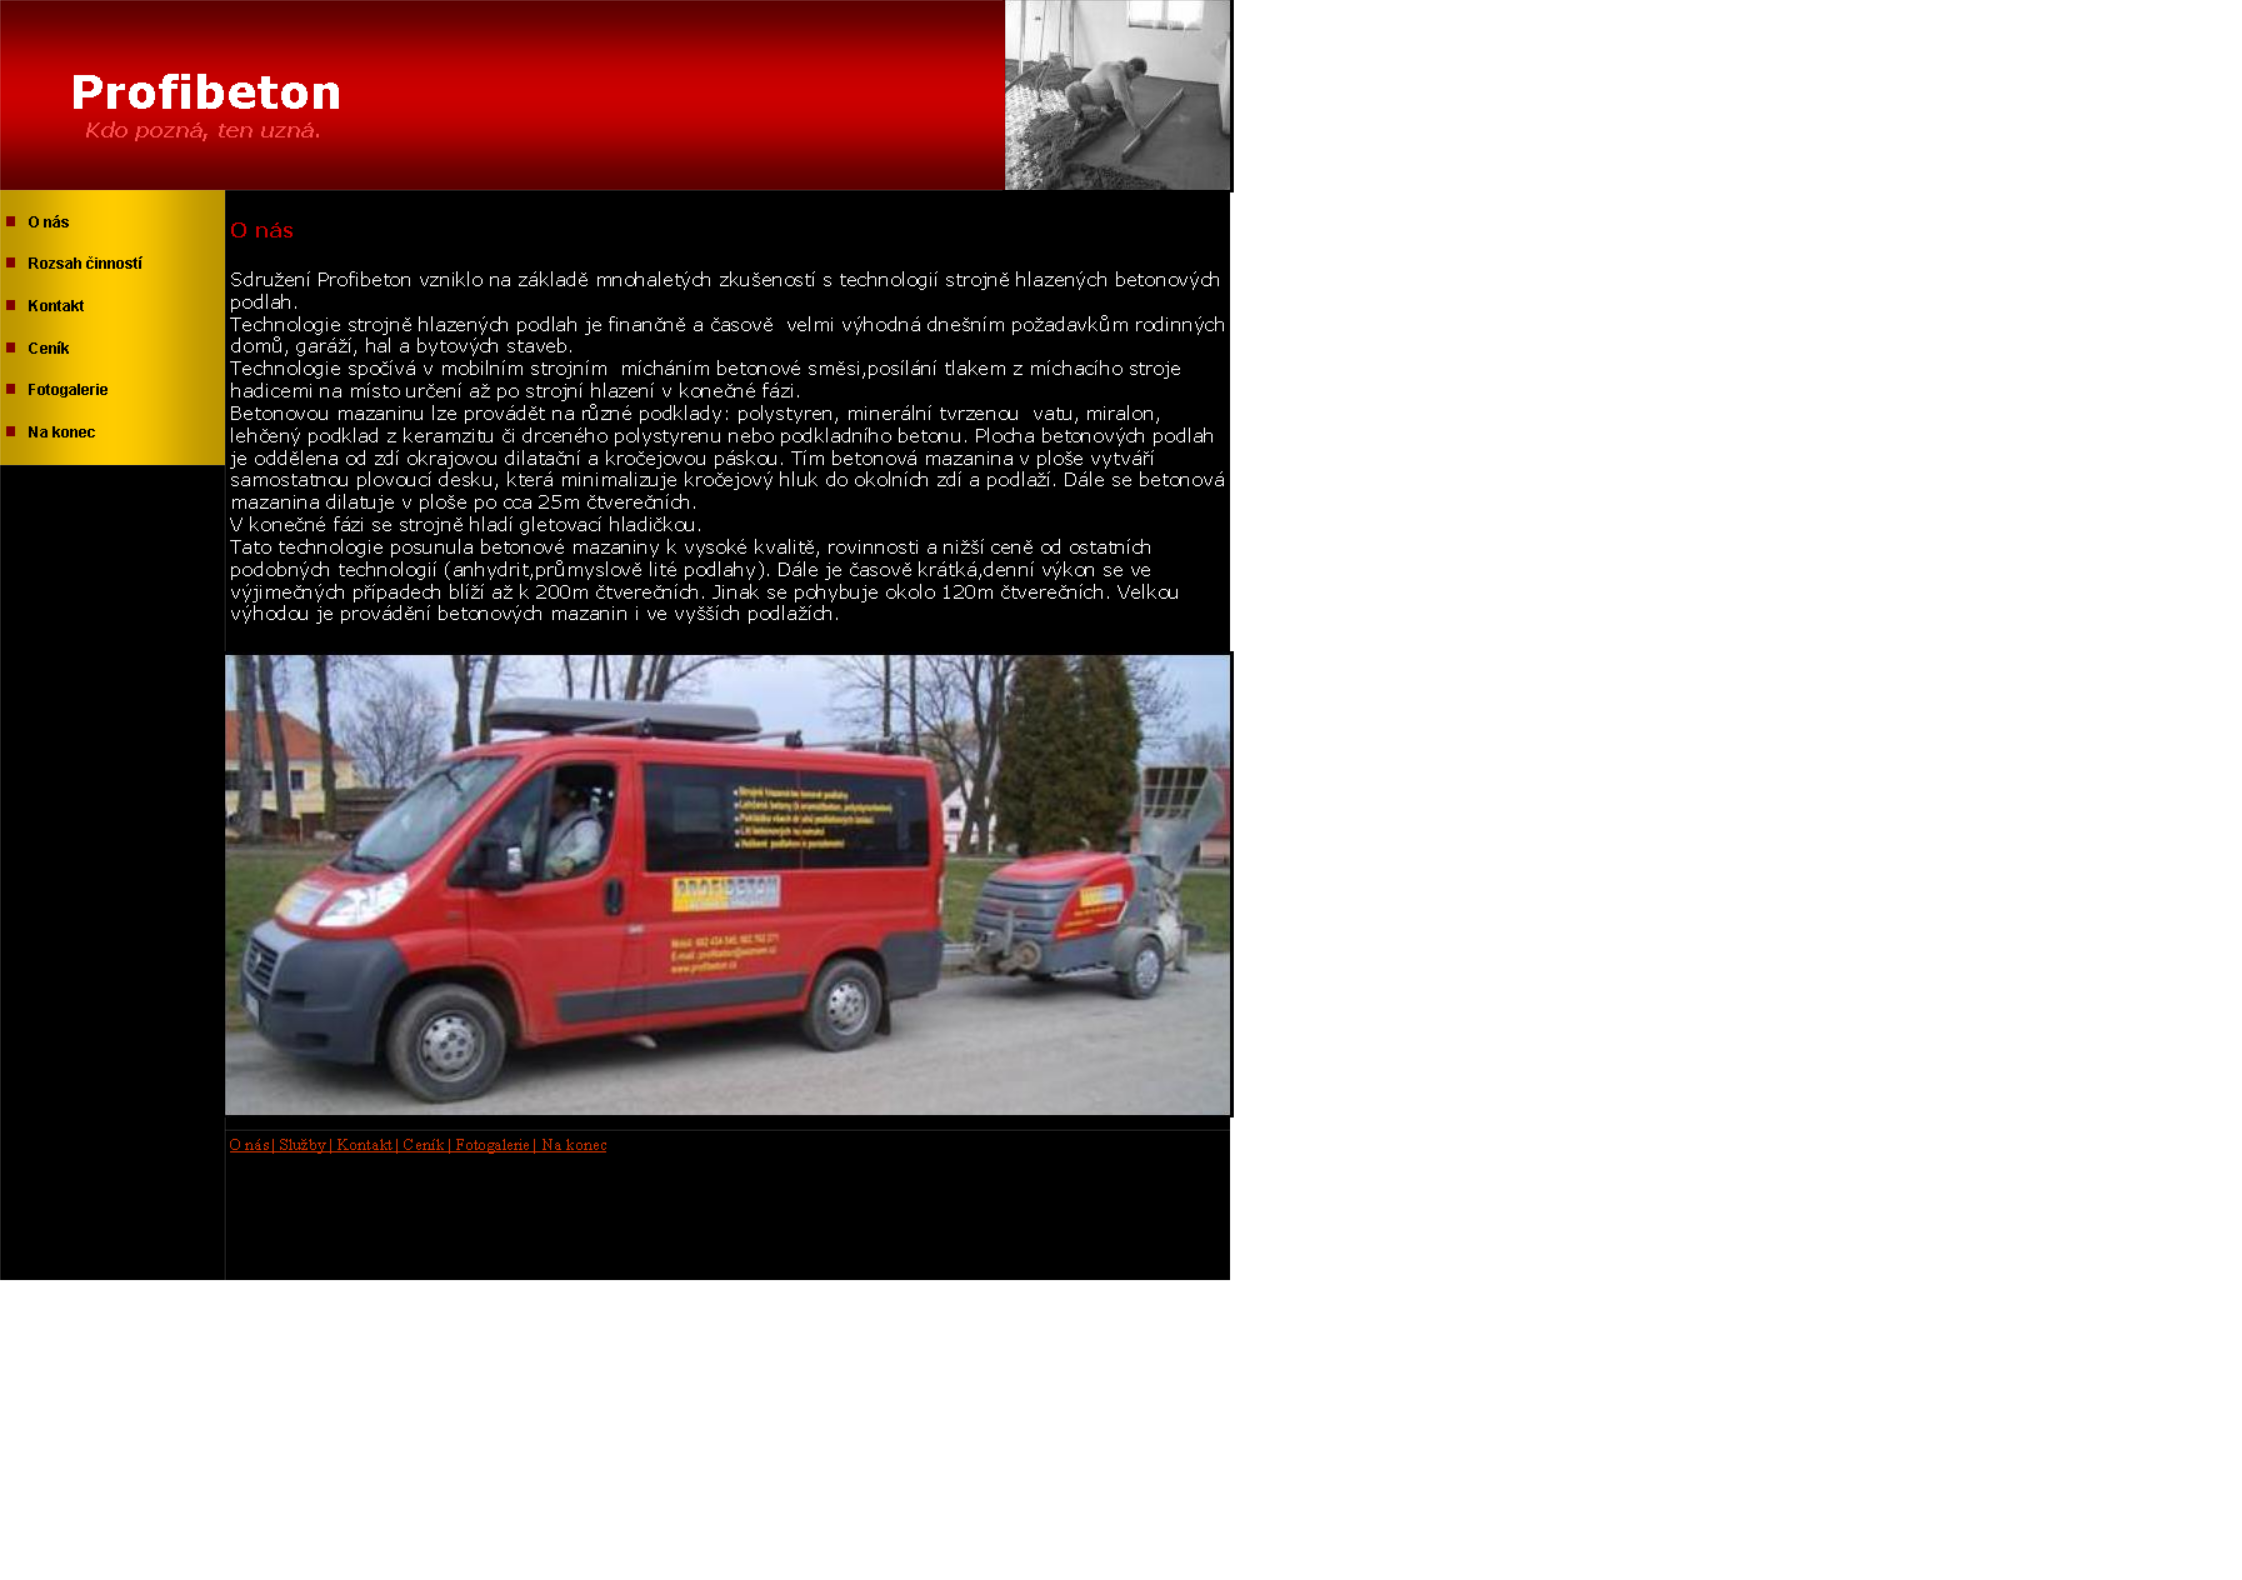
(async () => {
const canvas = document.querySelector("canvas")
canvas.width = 2242
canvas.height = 1580
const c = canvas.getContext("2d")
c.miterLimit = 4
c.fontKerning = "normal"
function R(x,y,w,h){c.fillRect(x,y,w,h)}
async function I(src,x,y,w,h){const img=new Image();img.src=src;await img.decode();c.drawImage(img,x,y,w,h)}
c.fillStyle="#fff"
R(0,0,2242,1580)
await I("2.png",1002,0,232,193)
await I("3.png",0,189,226,277)
await I("1.png",0,0,1006,191)
await I("8.png",224,1129,1007,152)
await I("4.png",224,189,1007,942)
await I("5.png",6,214,137,224)
await I("7.png",224,651,1010,467)
await I("6.png",0,464,226,817)
})()
